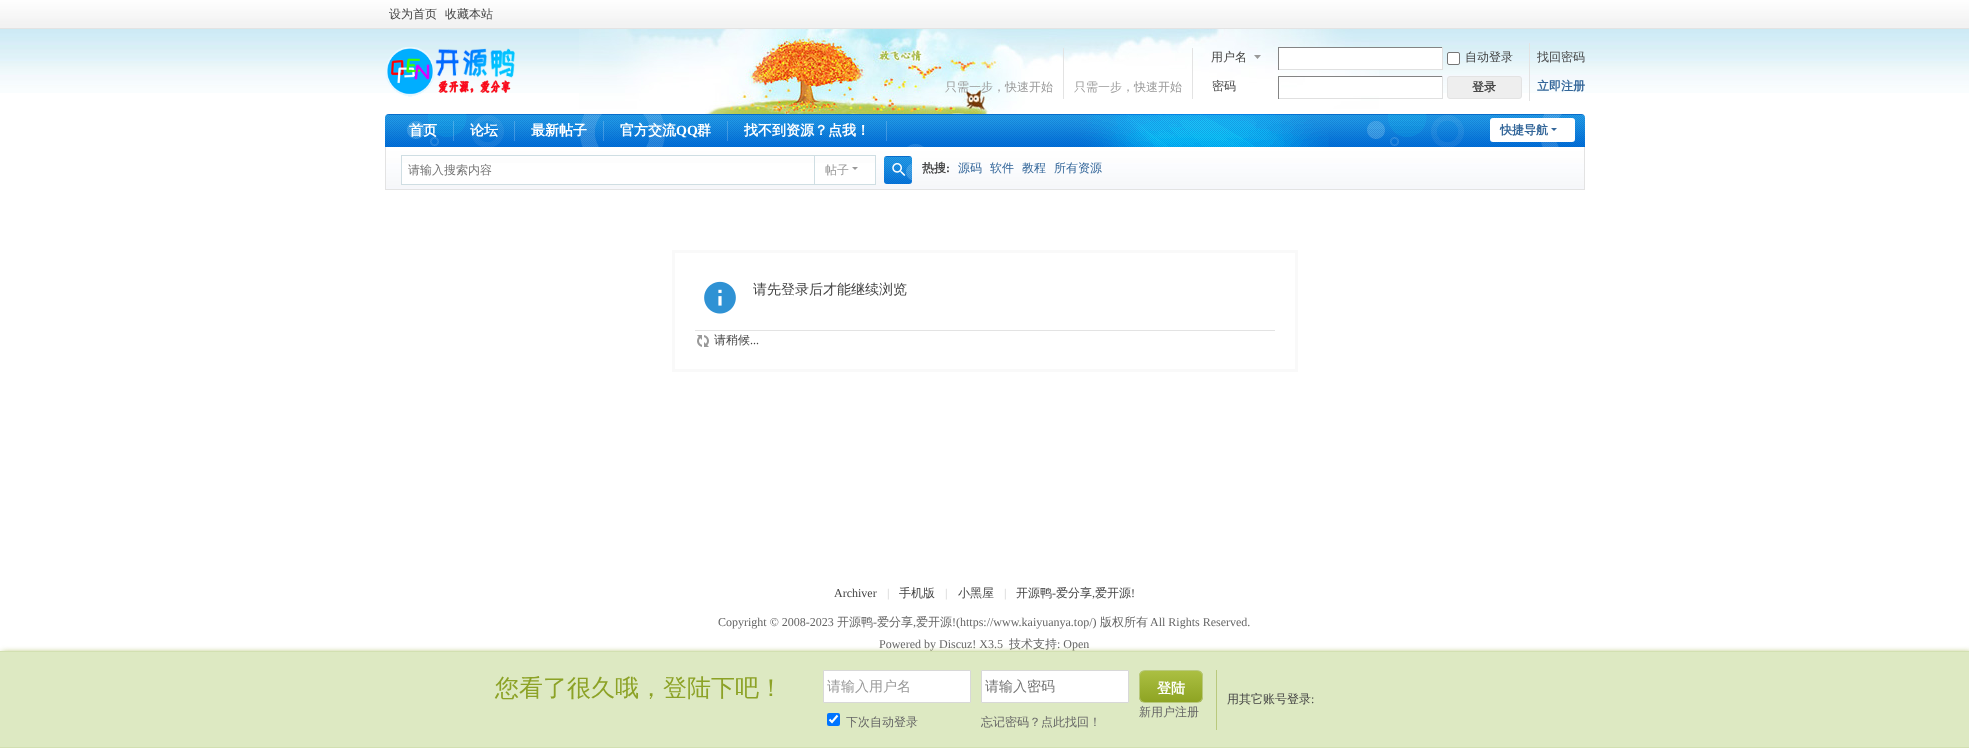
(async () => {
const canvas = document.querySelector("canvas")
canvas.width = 1969
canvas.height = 748
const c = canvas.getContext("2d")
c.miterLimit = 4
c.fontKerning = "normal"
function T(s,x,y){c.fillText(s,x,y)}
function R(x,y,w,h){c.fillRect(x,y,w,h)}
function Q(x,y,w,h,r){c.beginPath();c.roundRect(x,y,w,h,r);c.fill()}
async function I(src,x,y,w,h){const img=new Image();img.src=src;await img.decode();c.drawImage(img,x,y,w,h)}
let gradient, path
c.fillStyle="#fff"
R(0,0,1969,748)
await I("1.png",0,29,1969,64)
await I("2.png",0,0,1969,28)
c.fillStyle="#e3e3e3"
R(0,28,1969,1)
c.font="500 12px WenQuanYi Zen Hei"
c.fillStyle="#444"
T("设为首页",389,18)
T("收藏本站",445,18)
await I("3.png",579,29,800,85)
await I("4.png",385,47,130,50)
c.fillStyle="#e3e3e3"
R(1063,48,1,51)
c.fillStyle="#999"
T("只需一步，快速开始",945,91)
c.fillStyle="#e3e3e3"
R(1192,48,1,51)
c.fillStyle="#999"
T("只需一步，快速开始",1074,91)
path = new Path2D("M1261 55h-7l3.5 4z")
c.fill(path)
c.fillStyle="#444"
T("用户名",1211,61)
c.fillStyle="#fff"
R(1279,48,163,21)
c.fillStyle="#848484"
R(1278,47,165,1)
c.fillStyle="#e0e0e0"
R(1442,47,1,23)
R(1278,69,165,1)
c.fillStyle="#848484"
R(1278,47,1,23)
c.fillStyle="#fff"
c.beginPath()
c.roundRect(1447.5,52.5,12,12,1.5)
c.fill()
c.strokeStyle="#767676"
c.stroke()
c.fillStyle="#444"
T("自动登录",1465,61)
T("找回密码",1537,61)
T("密码",1212,90)
c.fillStyle="#fff"
R(1305,77,137,19)
c.fillStyle="#848484"
R(1278,76,165,1)
c.fillStyle="#e0e0e0"
R(1442,76,1,23)
R(1278,98,165,1)
c.fillStyle="#848484"
R(1278,76,1,23)
c.fillStyle="#e3e3e3"
R(1529,43,1,58)
c.fillStyle="#eee"
c.beginPath()
c.roundRect(1447.5,76.5,74,22,2.5)
c.fill()
c.strokeStyle="#e3e3e3"
c.stroke()
c.font="bold 12px WenQuanYi Zen Hei"
c.fillStyle="#444"
T("登录",1472,91)
c.fillStyle="#369"
T("立即注册",1537,90)
await I("5.png",385,114,1200,33)
c.fillStyle="#ffffff33"
R(453,121,1,20)
c.font="bold 14px WenQuanYi Zen Hei"
c.fillStyle="#fff"
T("首页",409,135)
c.fillStyle="#ffffff33"
R(514,121,1,20)
c.fillStyle="#fff"
T("论坛",470,135)
c.fillStyle="#ffffff33"
R(603,121,1,20)
c.fillStyle="#fff"
T("最新帖子",531,135)
c.fillStyle="#ffffff33"
R(727,121,1,20)
c.fillStyle="#fff"
T("官方交流",620,135)
c.font="bold 14px Liberation Serif"
T("QQ",676,135)
c.font="bold 14px WenQuanYi Zen Hei"
T("群",697,135)
c.fillStyle="#ffffff33"
R(886,121,1,20)
c.fillStyle="#fff"
T("找不到资源？点我！",744,135)
Q(1490,118,85,24,3)
c.font="bold 12px WenQuanYi Zen Hei"
c.fillStyle="#369"
T("快捷导航",1500,134)
path = new Path2D("M1551 128h6l-3 3z")
c.fill(path)
await I("6.png",386,147,1198,42)
c.fillStyle="#e3e3e3"
R(1584,147,1,43)
R(385,189,1200,1)
R(385,147,1,43)
c.fillStyle="#fff"
R(402,163,412,21)
c.fillStyle="#cfdee3"
R(813,155,63,1)
R(875,155,1,30)
R(813,184,63,1)
c.strokeStyle="#cfdee3"
c.strokeRect(401.5,155.5,413,29)
c.font="500 12px WenQuanYi Zen Hei"
c.fillStyle="#757575"
T("请输入搜索内容",408,174)
c.fillStyle="#fff"
R(815,163,60,21)
c.fillStyle="#999"
T("帖子",825,174)
path = new Path2D("M852 167h6l-3 3z")
c.fill(path)
await I("7.png",884,156,28,28)
await I("8.png",892,163,14,13)
c.font="bold 12px WenQuanYi Zen Hei"
c.fillStyle="#444"
T("热搜",922,172)
c.font="bold 12px Liberation Serif"
T(":",946,172)
c.font="500 12px WenQuanYi Zen Hei"
c.fillStyle="#369"
T("源码",958,172)
T("软件",990,172)
T("教程",1022,172)
T("所有资源",1054,172)
c.strokeStyle="#f9f9f9"
c.lineWidth=3
c.strokeRect(673.5,251.5,623,119)
await I("9.png",704,281,32,33)
c.font="500 14px WenQuanYi Zen Hei"
c.fillStyle="#444"
T("请先登录后才能继续浏览",753,294)
c.fillStyle="#e3e3e3"
R(695,330,580,1)
await I("10.png",697,335,12,12)
c.font="500 12px WenQuanYi Zen Hei"
c.fillStyle="#444"
T("请稍候",714,344)
c.font="12px Liberation Serif"
T("...",750,344)
T("Archiver",834,597)
c.fillStyle="#cdcdcd"
T("|",887,597)
c.font="500 12px WenQuanYi Zen Hei"
c.fillStyle="#444"
T("手机版",899,597)
c.font="12px Liberation Serif"
c.fillStyle="#cdcdcd"
T("|",945,597)
c.font="500 12px WenQuanYi Zen Hei"
c.fillStyle="#444"
T("小黑屋",958,597)
c.font="12px Liberation Serif"
c.fillStyle="#cdcdcd"
T("|",1004,597)
c.font="500 12px WenQuanYi Zen Hei"
c.fillStyle="#444"
T("开源鸭",1016,597)
c.font="12px Liberation Serif"
T("-",1052,597)
c.font="500 12px WenQuanYi Zen Hei"
T("爱分享",1056,597)
T("爱开源",1095,597)
c.font="12px Liberation Serif"
T("!",1131,597)
T(",",1092,597)
c.fillStyle="#666"
T("Copyright © 2008-2023",718,626)
c.font="500 12px WenQuanYi Zen Hei"
T("开源鸭",837,626)
c.font="12px Liberation Serif"
T("-",873,626)
c.font="500 12px WenQuanYi Zen Hei"
T("爱分享",877,626)
T("爱开源",916,626)
c.font="12px Liberation Serif"
T("!(https://www.kaiyuanya.top/)",952,626)
c.font="500 12px WenQuanYi Zen Hei"
T("版权所有",1100,626)
c.font="12px Liberation Serif"
T("All Rights Reserved.",1150,626)
T(",",913,626)
T("Powered by Discuz! X3.5",879,648)
c.font="500 12px WenQuanYi Zen Hei"
T("技术支持",1009,648)
c.font="12px Liberation Serif"
T(": Open",1057,648)
c.fillStyle="#8ca226"
c.filter="blur(3px)"
c.beginPath()
c.rect(2,653,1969,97)
c.fill()
c.filter="none"
c.fillStyle="#dde9c2"
R(0,652,1969,95)
c.fillStyle="#d2e0b1"
R(0,651,1969,1)
R(0,747,1969,1)
c.font="500 24px WenQuanYi Zen Hei"
c.fillStyle="#8ca226"
T("您看了很久哦，登陆下吧！",495,696)
c.fillStyle="#fff"
c.beginPath()
c.rect(823.5,670.5,147,32)
c.fill()
c.strokeStyle="#d8d8d8"
c.lineWidth=1
c.stroke()
c.font="500 14px WenQuanYi Zen Hei"
c.fillStyle="#999"
T("请输入用户名",827,691)
c.fillStyle="#0075ff"
Q(827,713,13,13,2)
path = new Path2D("M829.5 719.5l2.5 2.5l5.5-6.5")
c.strokeStyle="#fff"
c.lineWidth=2.1
c.stroke(path)
c.font="500 12px WenQuanYi Zen Hei"
c.fillStyle="#666"
T("下次自动登录",846,726)
c.fillStyle="#fff"
c.beginPath()
c.rect(981.5,670.5,147,32)
c.fill()
c.strokeStyle="#d8d8d8"
c.lineWidth=1
c.stroke()
c.font="500 14px WenQuanYi Zen Hei"
c.fillStyle="#757575"
T("请输入密码",985,691)
c.font="500 12px WenQuanYi Zen Hei"
c.fillStyle="#666"
T("忘记密码？点此找回！",981,726)
c.fillStyle="#b9c97d"
R(1216,670,1,60)
c.save()
c.beginPath()
c.roundRect(1139,670,64,33,6)
c.clip()
gradient = c.createLinearGradient(1171,671,1171,702)
gradient.addColorStop(0,"#abbf42")
gradient.addColorStop(1,"#8ea423")
c.fillStyle = gradient
R(1139,671,64,31)
c.restore()
c.beginPath()
c.roundRect(1139.5,670.5,63,32,5.5)
c.strokeStyle="#b9c97d"
c.stroke()
c.font="bold 14px WenQuanYi Zen Hei"
c.fillStyle="#fff"
T("登陆",1157,693)
c.font="500 12px WenQuanYi Zen Hei"
c.fillStyle="#666"
T("新用户注册",1139,716)
c.fillStyle="#444"
T("用其它账号登录",1227,703)
c.font="12px Liberation Serif"
T(":",1311,703)
})()
